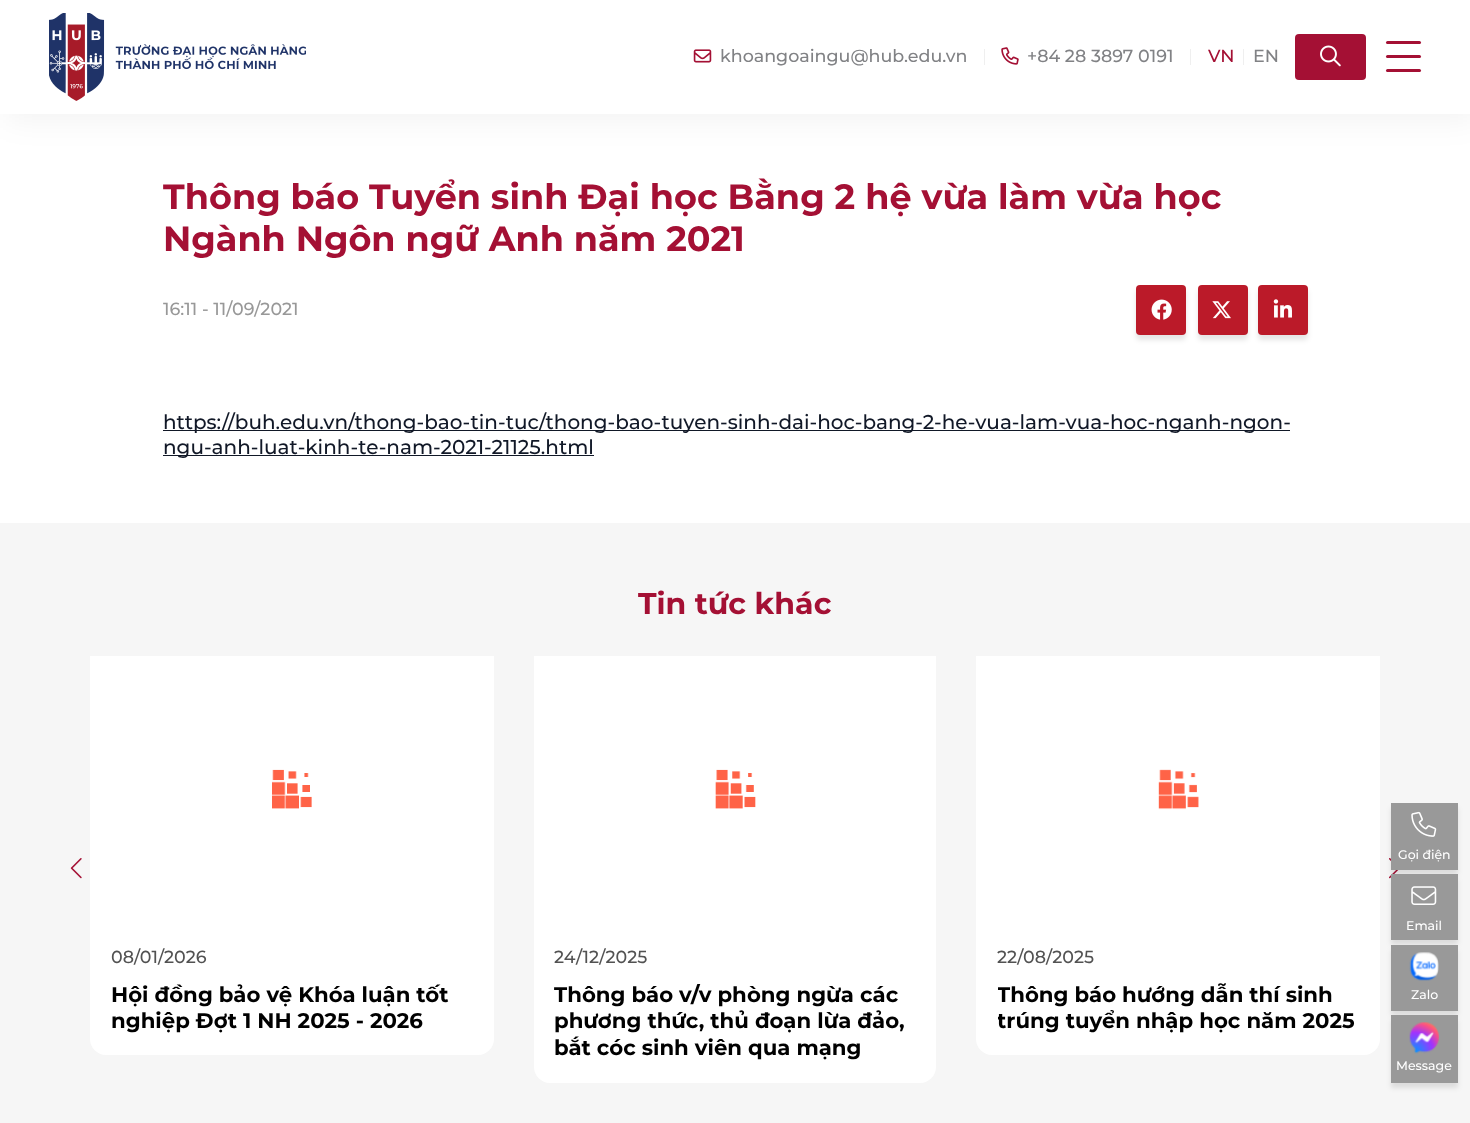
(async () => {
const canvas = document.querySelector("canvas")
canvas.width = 1470
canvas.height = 1123
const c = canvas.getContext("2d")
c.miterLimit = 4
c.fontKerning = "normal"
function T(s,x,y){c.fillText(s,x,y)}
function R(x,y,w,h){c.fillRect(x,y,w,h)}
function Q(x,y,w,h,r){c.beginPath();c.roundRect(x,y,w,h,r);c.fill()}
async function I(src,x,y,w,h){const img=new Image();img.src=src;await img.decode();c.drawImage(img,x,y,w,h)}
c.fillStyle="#fff"
R(0,0,1470,1123)
c.fillStyle="#0000000d"
c.filter="blur(15.5px)"
c.beginPath()
c.rect(6,6,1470,114)
c.fill()
c.filter="none"
c.fillStyle="#fff"
R(0,0,1470,114)
await I("1.png",49,13,257,88)
await I("2.png",693,49,19,14)
c.font="500 17.5px Montserrat"
c.fillStyle="#818285"
T("khoangoaingu@hub.edu.vn",720,62)
c.fillStyle="#efefef"
R(984,49,1,16)
await I("3.png",1001,47,18,18)
c.fillStyle="#818285"
T("+84 28 3897 0191",1027,62)
c.fillStyle="#efefef"
R(1190,49,1,16)
c.fillStyle="#a41034"
T("VN",1208,62)
c.fillStyle="#efefef"
R(1243,49,1,16)
c.fillStyle="#818285"
T("EN",1253,62)
c.fillStyle="#a41034"
Q(1295,34,71,46,4)
await I("4.png",1320,45,21,22)
Q(1386,41,35,3,1.5)
Q(1386,55,35,3,1.5)
Q(1386,69,35,3,1.5)
c.font="bold 35px Montserrat"
T("Thông báo Tuyển sinh Đại học Bằng 2 hệ vừa làm vừa học",163,209)
T("Ngành Ngôn ngữ Anh năm 2021",163,251)
c.font="500 17.5px Montserrat"
c.fillStyle="#989898"
T("16:11 - 11/09/2021",163,315)
c.fillStyle="#0000001a"
c.filter="blur(2.5px)"
c.beginPath()
c.roundRect(1136,290,50,50,4)
c.fill()
c.filter="none"
c.fillStyle="#bb1a29"
Q(1136,285,50,50,4)
await I("5.png",1151,299,21,21)
c.fillStyle="#0000001a"
c.filter="blur(2.5px)"
c.beginPath()
c.roundRect(1198,290,50,50,4)
c.fill()
c.filter="none"
c.fillStyle="#bb1a29"
Q(1198,285,50,50,4)
await I("6.png",1212,301,19,18)
c.fillStyle="#0000001a"
c.filter="blur(2.5px)"
c.beginPath()
c.roundRect(1258,290,50,50,4)
c.fill()
c.filter="none"
c.fillStyle="#bb1a29"
Q(1258,285,50,50,4)
await I("7.png",1273,299,19,19)
c.fillStyle="#111827"
R(163,430,1127,1)
c.font="500 20px Montserrat"
T("https://buh.edu.vn/thong-bao-tin-tuc/thong-bao-tuyen-sinh-dai-hoc-bang-2-he-vua-lam-vua-hoc-nganh-ngon-",163,429)
R(163,455,431,1)
T("ngu-anh-luat-kinh-te-nam-2021-21125.html",163,454)
c.fillStyle="#f6f6f6"
R(0,523,1470,600)
c.font="bold 30px Montserrat"
c.fillStyle="#a41034"
T("Tin tức khác",638,614)
await I("8.png",70,858,12,21)
await I("9.png",1389,858,10,21)
c.fillStyle="#fff"
c.beginPath()
c.roundRect(90,656,404,399,[0,0,16,16])
c.fill()
await I("10.png",272,769,40,40)
c.font="500 17.5px Montserrat"
c.fillStyle="#525252"
T("08/01/2026",111,963)
c.font="bold 21.25px Montserrat"
c.fillStyle="#000"
T("Hội đồng bảo vệ Khóa luận tốt",111,1002)
T("nghiệp Đợt 1 NH 2025 - 2026",111,1028)
c.fillStyle="#fff"
c.beginPath()
c.roundRect(534,656,402,427,[0,0,16,16])
c.fill()
await I("11.png",715,769,41,40)
c.font="500 17.5px Montserrat"
c.fillStyle="#525252"
T("24/12/2025",554,963)
c.font="bold 21.25px Montserrat"
c.fillStyle="#000"
T("Thông báo v/v phòng ngừa các",554,1002)
T("phương thức, thủ đoạn lừa đảo,",554,1028)
T("bắt cóc sinh viên qua mạng",554,1055)
c.fillStyle="#fff"
c.beginPath()
c.roundRect(976,656,404,399,[0,0,16,16])
c.fill()
await I("12.png",1158,769,41,41)
c.font="500 17.5px Montserrat"
c.fillStyle="#525252"
T("22/08/2025",997,963)
c.save()
c.beginPath()
c.rect(998,981,361,54)
c.clip()
c.font="bold 21.25px Montserrat"
c.fillStyle="#000"
T("Thông báo hướng dẫn thí sinh",997,1002)
T("trúng tuyển nhập học năm 2025",997,1028)
c.restore()
c.fillStyle="#0000001a"
c.filter="blur(2.5px)"
c.beginPath()
c.rect(1391,808,67,67)
c.fill()
c.filter="none"
c.fillStyle="#999"
R(1391,803,67,67)
await I("13.png",1411,811,26,26)
c.font="500 12.5px Montserrat"
c.fillStyle="#fff"
T("Gọi điện",1398,859)
c.fillStyle="#0000001a"
c.filter="blur(2.5px)"
c.beginPath()
c.rect(1391,879,67,66)
c.fill()
c.filter="none"
c.fillStyle="#999"
R(1391,874,67,66)
await I("14.png",1411,886,26,19)
c.fillStyle="#fff"
T("Email",1406,930)
c.fillStyle="#0000001a"
c.filter="blur(2.5px)"
c.beginPath()
c.rect(1391,950,67,66)
c.fill()
c.filter="none"
c.fillStyle="#999"
R(1391,945,67,66)
await I("15.png",1409,952,30,29)
c.fillStyle="#fff"
T("Zalo",1411,999)
c.fillStyle="#0000001a"
c.filter="blur(2.5px)"
c.beginPath()
c.rect(1391,1020,67,68)
c.fill()
c.filter="none"
c.fillStyle="#999"
R(1391,1015,67,68)
await I("16.png",1409,1022,30,32)
c.fillStyle="#fff"
T("Message",1396,1070)
})()
